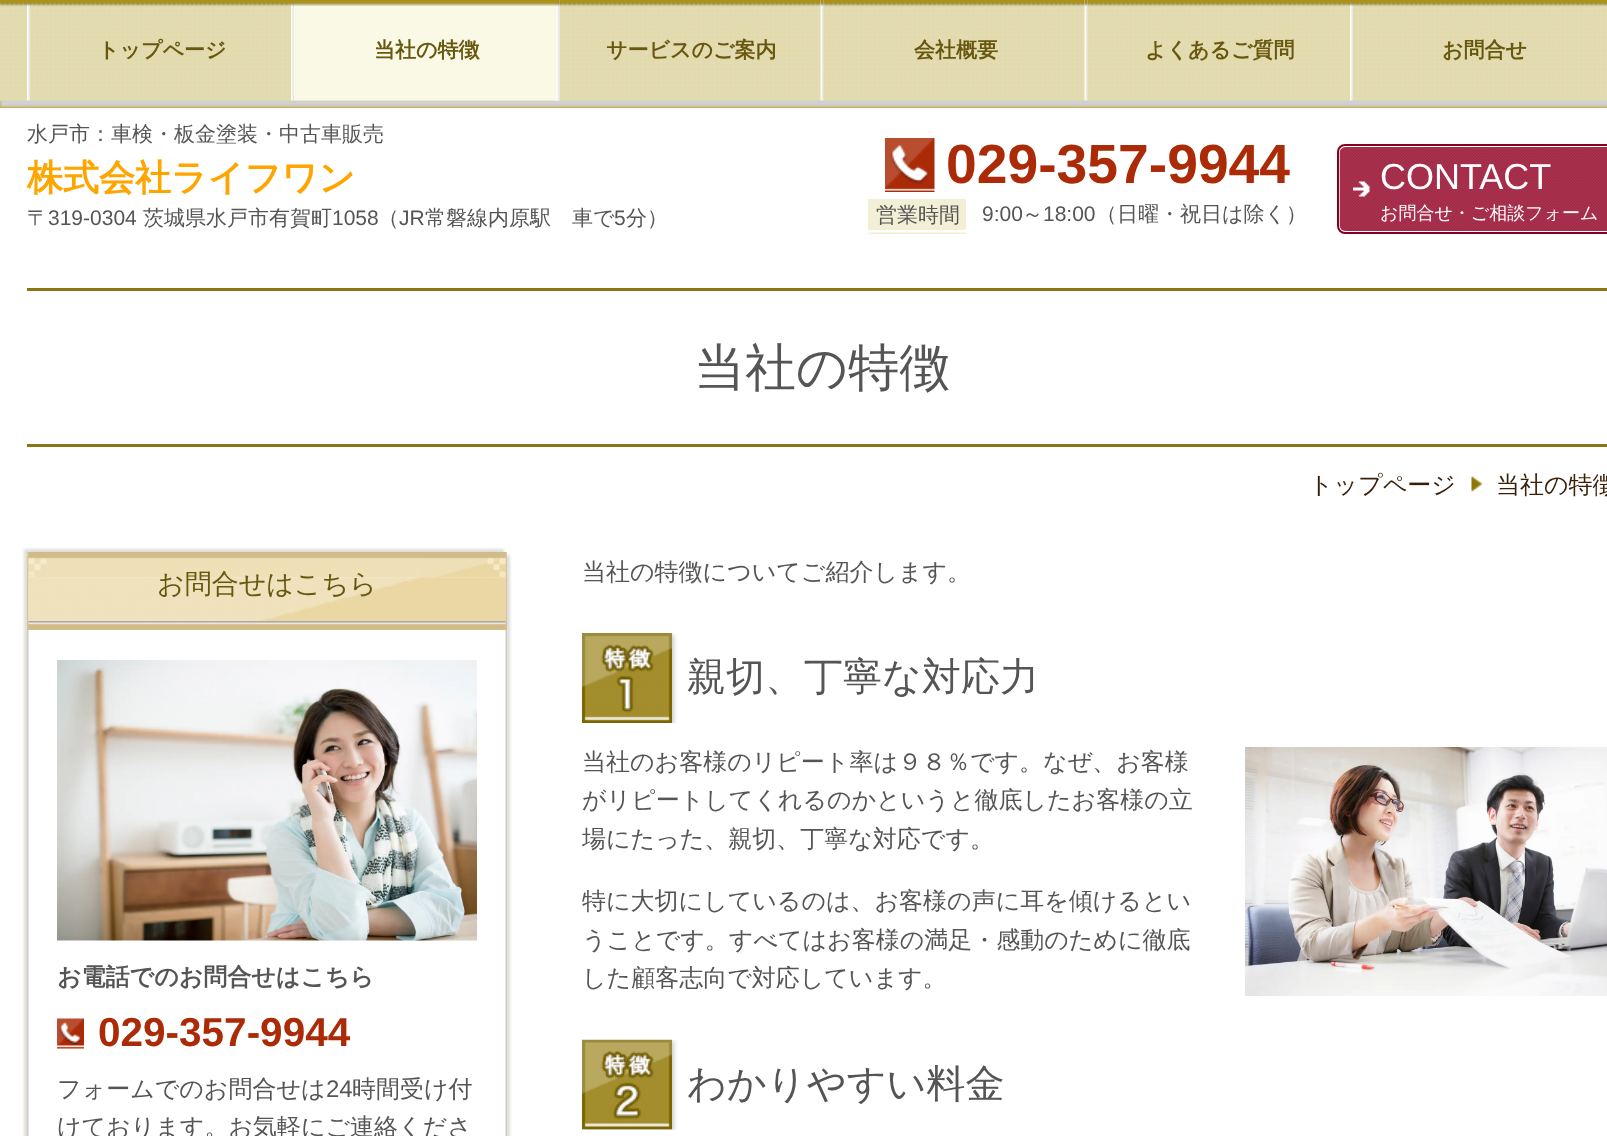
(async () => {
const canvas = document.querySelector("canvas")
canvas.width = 1607
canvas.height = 1136
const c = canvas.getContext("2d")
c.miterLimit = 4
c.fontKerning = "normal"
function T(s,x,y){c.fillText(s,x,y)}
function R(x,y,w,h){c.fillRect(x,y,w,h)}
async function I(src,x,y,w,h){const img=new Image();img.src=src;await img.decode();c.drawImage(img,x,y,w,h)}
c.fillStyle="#fff"
R(0,0,1607,1136)
await I("8.png",0,100,1607,8)
c.fillStyle="#d1d1d1"
c.filter="blur(1.5px)"
c.beginPath()
c.rect(0,6,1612,101)
c.fill()
c.filter="none"
await I("1.png",0,0,1607,101)
await I("2.png",27,3,3,98)
await I("3.png",291,3,3,98)
c.font="bold 21px WenQuanYi Zen Hei"
c.fillStyle="#68580f"
T("トップページ",98,57)
await I("4.png",294,0,266,101)
T("当社の特徴",374,57)
await I("5.png",820,0,4,101)
T("サービスのご案内",606,57)
await I("6.png",1084,0,4,101)
T("会社概要",914,57)
await I("7.png",1350,3,3,98)
T("よくあるご質問",1145,57)
T("お問合せ",1442,57)
c.font="500 21px WenQuanYi Zen Hei"
c.fillStyle="#555"
T("水戸市：車検・板金塗装・中古車販売",27,141)
c.font="bold 36px WenQuanYi Zen Hei"
c.fillStyle="#ffa500"
T("株式会社ライフワン",27,190)
c.font="500 21px WenQuanYi Zen Hei"
c.fillStyle="#555"
T("〒",27,225)
c.font="21px Liberation Sans"
T("319-0304",48,225)
c.font="500 21px WenQuanYi Zen Hei"
T("茨城県水戸市有賀町",143,225)
c.font="21px Liberation Sans"
T("1058",332,225)
c.font="500 21px WenQuanYi Zen Hei"
T("（",378,225)
c.font="21px Liberation Sans"
T("JR",399,225)
c.font="500 21px WenQuanYi Zen Hei"
T("常磐線内原駅　車で",425,225)
c.font="21px Liberation Sans"
T("5",614,225)
c.font="500 21px WenQuanYi Zen Hei"
T("分）",626,225)
await I("9.png",885,138,50,54)
c.font="bold 55.25px Liberation Sans"
c.fillStyle="#ab2b08"
T("029-357-9944",946,183)
c.fillStyle="#f3eed6"
R(868,199,98,31)
c.font="500 21px WenQuanYi Zen Hei"
c.fillStyle="#555"
T("営業時間",876,222)
await I("10.png",868,232,98,2)
c.font="21px Liberation Sans"
T("9:00",982,221)
c.font="500 21px WenQuanYi Zen Hei"
T("～",1022,221)
c.font="21px Liberation Sans"
T("18:00",1043,221)
c.font="500 21px WenQuanYi Zen Hei"
T("（日曜・祝日は除く）",1096,221)
c.beginPath()
c.roundRect(1338,145,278,88,7)
c.strokeStyle="#860020"
c.lineWidth=2
c.stroke()
await I("11.png",1339,147,268,84)
await I("12.png",1353,181,17,16)
c.font="36px Liberation Sans"
c.fillStyle="#fff"
T("CONTACT",1380,189)
c.font="500 18px WenQuanYi Zen Hei"
T("お問合せ・ご相談フォーム",1380,219)
c.fillStyle="#8b7512"
R(27,288,1580,3)
R(27,444,1580,3)
c.font="500 51px WenQuanYi Zen Hei"
c.fillStyle="#555"
T("当社の特徴",694,385)
c.font="500 24px WenQuanYi Zen Hei"
c.fillStyle="#3a1f08"
T("トップページ",1309,493)
await I("13.png",1471,475,11,17)
T("当社の特徴",1496,493)
c.fillStyle="#deddd9"
c.filter="blur(1.5px)"
c.beginPath()
c.rect(24,549,480,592)
c.fill()
c.filter="none"
c.filter="blur(1.5px)"
c.beginPath()
c.rect(30,555,480,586)
c.fill()
c.filter="none"
await I("14.png",27,577,480,559)
await I("15.png",27,552,480,78)
await I("16.png",28,577,478,46)
c.font="500 27px WenQuanYi Zen Hei"
c.fillStyle="#68580f"
T("お問合せはこちら",157,593)
await I("17.png",57,660,420,281)
c.font="bold 24px WenQuanYi Zen Hei"
c.fillStyle="#555"
T("お電話でのお問合せはこちら",57,985)
await I("18.png",57,1018,27,31)
c.font="bold 40.5px Liberation Sans"
c.fillStyle="#ab2b08"
T("029-357-9944",98,1046)
c.font="500 24px WenQuanYi Zen Hei"
c.fillStyle="#555"
T("フォームでのお問合せは",57,1097)
c.font="24px Liberation Sans"
T("24",326,1097)
c.font="500 24px WenQuanYi Zen Hei"
T("時間受け付",352,1097)
T("けております。お気軽にご連絡くださ",57,1135)
T("当社の特徴についてご紹介します。",582,580)
c.save()
c.beginPath()
c.rect(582,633,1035,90)
c.clip()
c.fillStyle="#ccc"
c.filter="blur(2px)"
c.beginPath()
c.rect(584,635,90,90)
c.fill()
c.filter="none"
c.restore()
await I("19.png",582,633,90,90)
c.font="500 39px WenQuanYi Zen Hei"
T("親切、丁寧な対応力",687,690)
c.font="500 24px WenQuanYi Zen Hei"
T("当社のお客様のリピート率は９８％です。なぜ、お客様",582,770)
T("がリピートしてくれるのかというと徹底したお客様の立",582,808)
T("場にたった、親切、丁寧な対応です。",582,847)
T("特に大切にしているのは、お客様の声に耳を傾けるとい",582,909)
T("うことです。すべてはお客様の満足・感動のために徹底",582,948)
T("した顧客志向で対応しています。",582,986)
await I("20.png",1245,747,362,249)
c.save()
c.beginPath()
c.rect(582,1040,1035,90)
c.clip()
c.fillStyle="#ccc"
c.filter="blur(2px)"
c.beginPath()
c.rect(584,1041,90,90)
c.fill()
c.filter="none"
c.restore()
await I("21.png",582,1039,90,91)
c.font="500 39px WenQuanYi Zen Hei"
T("わかりやすい料金",687,1097)
})()
